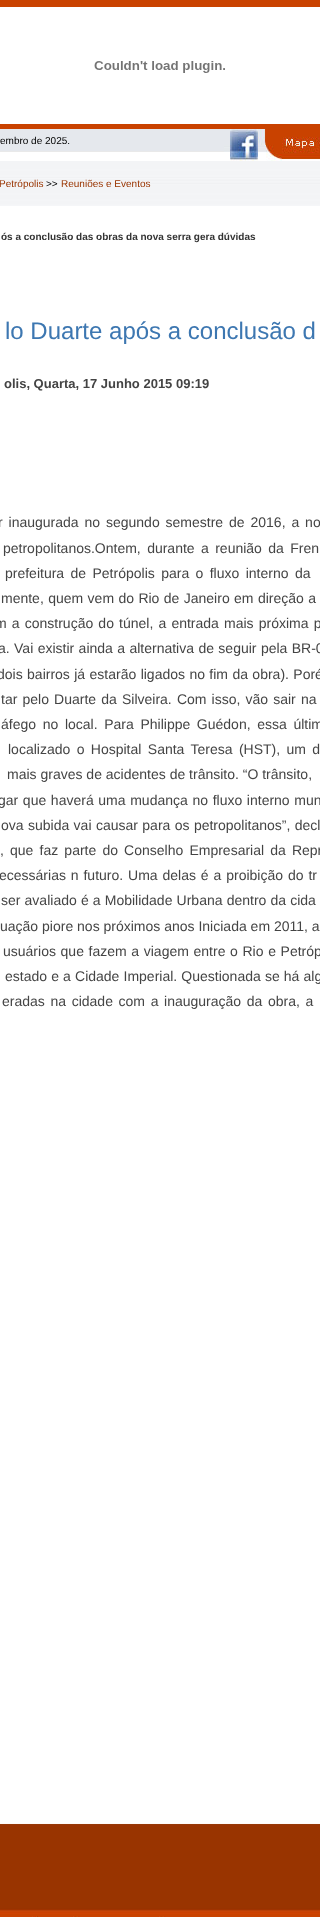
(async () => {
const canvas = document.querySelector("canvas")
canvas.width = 320
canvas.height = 1917
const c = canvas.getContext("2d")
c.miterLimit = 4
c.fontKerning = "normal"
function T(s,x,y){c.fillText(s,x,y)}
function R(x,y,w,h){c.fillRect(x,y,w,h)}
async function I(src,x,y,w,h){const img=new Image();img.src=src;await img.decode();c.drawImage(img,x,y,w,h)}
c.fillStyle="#fff"
R(0,0,320,1917)
c.fillStyle="#c94200"
R(0,0,320,7)
await I("1.png",94,61,131,12)
R(0,124,320,5)
c.fillStyle="#e5e8ed"
R(0,129,224,22)
c.font="10px Liberation Sans"
c.fillStyle="#000"
T("embro de 2025.",0,144)
c.fillStyle="#e9e9e9"
R(0,151,224,1)
await I("2.png",224,129,6,23)
await I("3.png",230,129,28,32)
await I("4.png",258,129,62,32)
await I("5.png",0,161,320,45)
c.fillStyle="#993400"
T("Petrópolis",-1,187)
c.fillStyle="#000"
T(">>",46,187)
c.fillStyle="#993400"
T("Reuniões e Eventos",61,187)
c.font="bold 10px Liberation Sans"
c.fillStyle="#333"
T("ós a conclusão das obras da nova serra gera dúvidas",1,240)
c.font="24px Liberation Sans"
c.fillStyle="#3d77b1"
T("lo Duarte após a conclusão d",5,339)
c.font="bold 13px Liberation Sans"
c.fillStyle="#444"
T("olis, Quarta, 17 Junho 2015 09:19",4,388)
c.wordSpacing="2px"
c.font="14px Liberation Sans"
T("r inaugurada no segundo semestre de 2016, a no",-2,527)
c.wordSpacing="2.5px"
T("petropolitanos.Ontem, durante a reunião da Fren",3,553)
T("prefeitura de Petrópolis para o fluxo interno da",5,578)
c.wordSpacing="0.5px"
T("mente, quem vem do Rio de Janeiro em direção a",1,603)
c.wordSpacing="1.25px"
T("m a construção do túnel, a entrada mais próxima p",-5,628)
c.wordSpacing="0.5px"
T("a. Vai existir ainda a alternativa de seguir pela BR-0",-2,653)
T("dois bairros já estarão ligados no fim da obra). Poré",-3,679)
c.wordSpacing="1.25px"
T("tar pelo Duarte da Silveira. Com isso, vão sair na",1,704)
c.wordSpacing="2.75px"
T("áfego no local. Para Philippe Guédon, essa últim",1,729)
c.wordSpacing="2.5px"
T("localizado o Hospital Santa Teresa (HST), um d",8,754)
c.wordSpacing="0px"
T("mais graves de acidentes de trânsito. “O trânsito,",7,779)
c.wordSpacing="0.75px"
T("gar que haverá uma mudança no fluxo interno mun",-2,805)
c.wordSpacing="0.5px"
T("ova subida vai causar para os petropolitanos”, decl",1,830)
c.wordSpacing="2.25px"
T(", que faz parte do Conselho Empresarial da Repr",0,855)
c.wordSpacing="1px"
T("ecessárias n futuro. Uma delas é a proibição do tr",-1,880)
c.wordSpacing="0.25px"
T("ser avaliado é a Mobilidade Urbana dentro da cida",1,905)
c.wordSpacing="0px"
T("uação piore nos próximos anos Iniciada em 2011, a",0,931)
c.wordSpacing="0.75px"
T("usuários que fazem a viagem entre o Rio e Petróp",3,956)
c.wordSpacing="0.25px"
T("estado e a Cidade Imperial. Questionada se há alg",5,981)
c.wordSpacing="1.75px"
T("eradas na cidade com a inauguração da obra, a",2,1006)
await I("6.png",0,1823,320,4)
c.fillStyle="#993400"
R(0,1827,320,81)
await I("7.png",0,1908,142,9)
await I("8.png",142,1908,178,9)
})()
